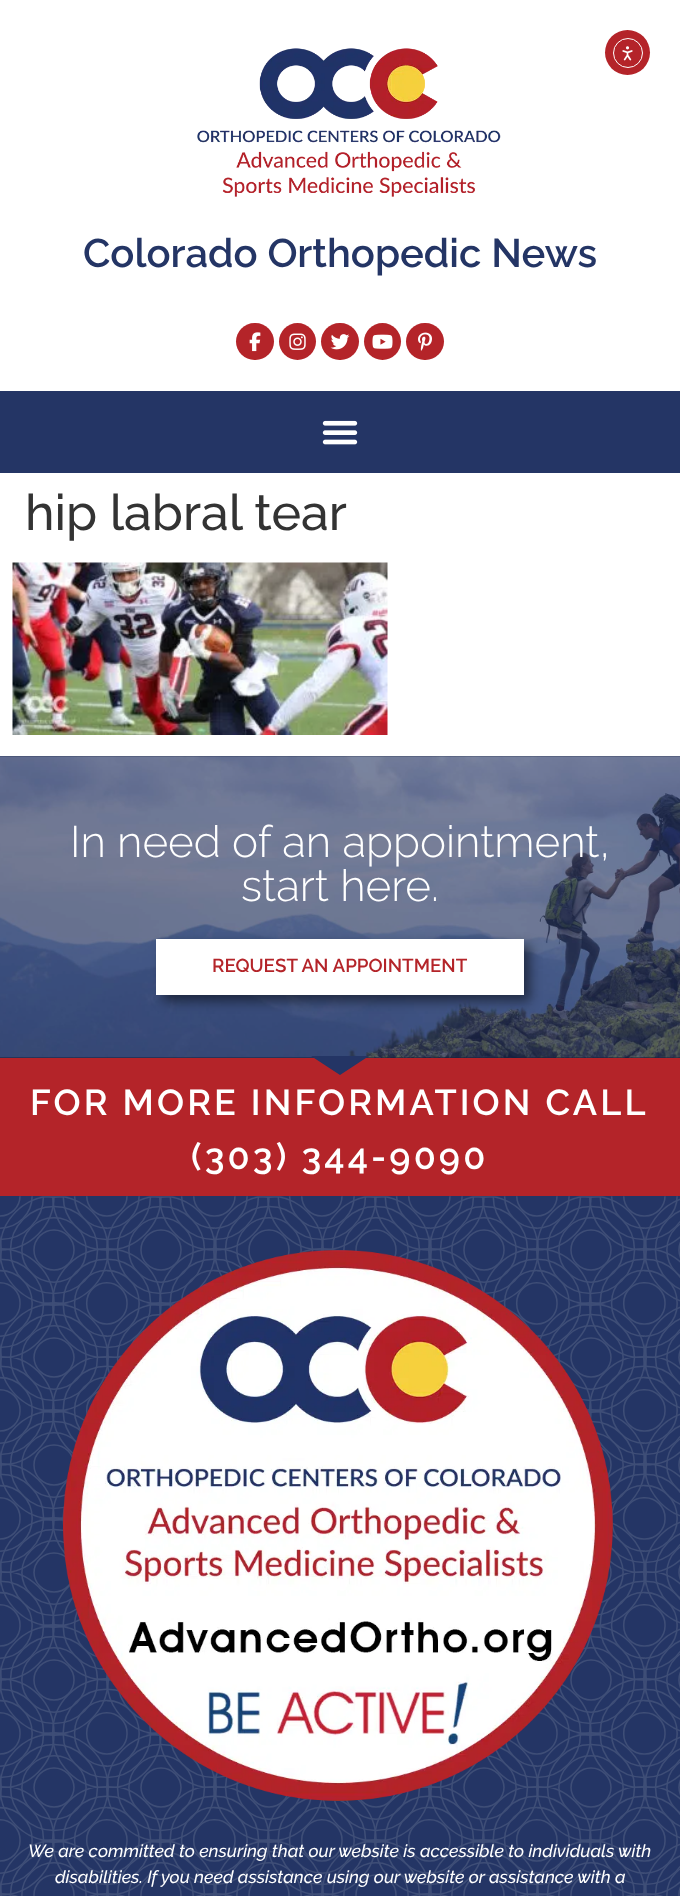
(async () => {
const canvas = document.querySelector("canvas")
canvas.width = 680
canvas.height = 1896
const c = canvas.getContext("2d")
c.miterLimit = 4
c.fontKerning = "normal"
function T(s,x,y){c.fillText(s,x,y)}
function R(x,y,w,h){c.fillRect(x,y,w,h)}
function Q(x,y,w,h,r){c.beginPath();c.roundRect(x,y,w,h,r);c.fill()}
async function I(src,x,y,w,h){const img=new Image();img.src=src;await img.decode();c.drawImage(img,x,y,w,h)}
let path
c.fillStyle="#fff"
R(0,0,680,1896)
c.fillStyle="#b42429"
c.beginPath()
c.arc(627.5,52.5,22.5,0,7)
c.fill()
c.beginPath()
c.arc(628,53,14.5,0,7)
c.strokeStyle="#fff"
c.stroke()
await I("1.png",622,46,11,15)
await I("2.png",197,48,304,149)
c.font="600 40px Raleway"
c.fillStyle="#243565"
T("Colorado Orthopedic News",83,267)
c.fillStyle="#b42429"
Q(236,323,38,37,18.5)
await I("3.png",249,332,12,20)
c.beginPath()
c.arc(297.5,341.5,18.5,0,7)
c.fill()
await I("4.png",289,333,17,17)
Q(321,323,38,37,18.5)
await I("5.png",330,334,20,16)
c.beginPath()
c.arc(382.5,341.5,18.5,0,7)
c.fill()
await I("6.png",372,334,21,15)
Q(406,323,38,37,18.5)
await I("7.png",418,332,14,19)
c.fillStyle="#243565"
R(0,391,680,82)
await I("8.png",322,420,36,25)
c.font="500 50px Raleway"
c.fillStyle="#333"
T("hip labral tear",25,530)
await I("9.png",12,562,376,173)
c.fillStyle="#16203e"
R(0,756,680,302)
await I("10.png",0,756,680,302)
c.font="300 44px Raleway"
c.fillStyle="#fff"
T("In need of an appointment,",70,857)
T("start here.",241,901)
c.fillStyle="#00000080"
c.filter="blur(6px)"
c.beginPath()
c.rect(163,945,367,56)
c.fill()
c.filter="none"
c.fillStyle="#fff"
R(156,939,368,56)
c.font="600 18.75px Raleway"
c.fillStyle="#b42429"
T("REQUEST AN APPOINTMENT",212,972)
R(0,1058,680,138)
c.fillStyle="#243565"
path = new Path2D("M340 1075l-29-19h58z")
c.fill(path)
c.letterSpacing="3.1px"
c.font="600 36px Raleway"
c.fillStyle="#fff"
T("FOR MORE INFORMATION CALL",30,1115)
T("(303) 344-9090",191,1169)
c.fillStyle="#243565"
R(0,1196,680,700)
await I("11.png",0,1196,680,700)
await I("12.png",63,1250,550,551)
c.letterSpacing="0px"
c.font="italic 500 17.5px Raleway"
c.fillStyle="#fff"
T("We are committed to ensuring that our website is accessible to individuals with",28,1857)
T("disabilities. If you need assistance using our website or assistance with a",55,1883)
})()
